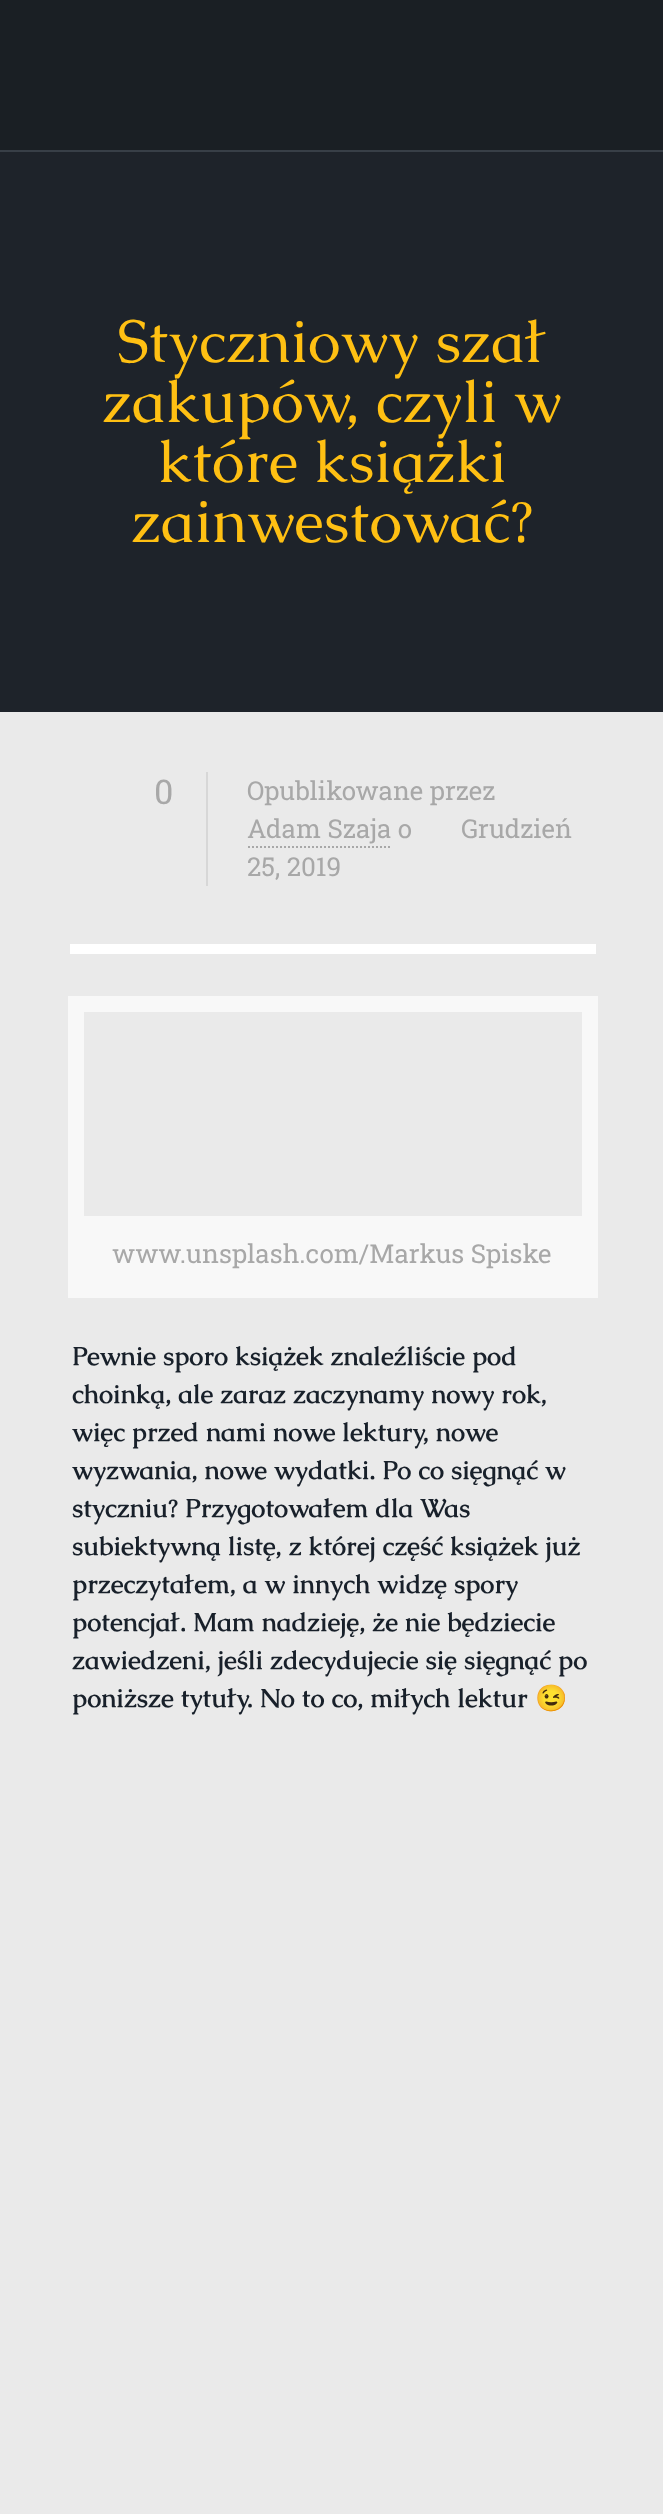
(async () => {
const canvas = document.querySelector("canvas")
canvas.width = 663
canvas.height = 2514
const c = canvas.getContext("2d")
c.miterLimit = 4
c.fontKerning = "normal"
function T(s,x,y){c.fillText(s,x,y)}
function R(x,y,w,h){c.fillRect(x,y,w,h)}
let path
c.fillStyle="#eaeaea"
R(0,0,663,2514)
c.fillStyle="#1e232a"
R(0,152,663,560)
c.fillStyle="#1a1f24"
R(0,0,663,150)
c.fillStyle="#383f47"
R(0,150,663,2)
c.font="60px Caudex"
c.fillStyle="#ffc013"
T("Styczniowy szał",117,362)
T("zakupów, czyli w",102,422)
T("które książki",158,482)
T("zainwestować?",131,542)
c.font="34px Roboto Slab"
c.fillStyle="#a8a8a8"
T("0",154,804)
c.fillStyle="#d7d7d7"
R(206,772,2,114)
c.font="26px Roboto Slab"
c.fillStyle="#a8a8a8"
T("Opublikowane przez",247,800)
T("Adam Szaja o",247,838)
path = new Path2D("M248 847h144")
c.strokeStyle="#a8a8a8"
c.lineWidth=2
c.setLineDash([2,2])
c.stroke(path)
T("Grudzień",461,838)
T("25, 2019",247,876)
c.fillStyle="#fff"
R(70,944,526,10)
c.strokeStyle="#f8f8f8"
c.lineWidth=16
c.setLineDash([])
c.strokeRect(76,1004,514,286)
c.fillStyle="#f8f8f8"
R(84,1216,498,66)
c.fillStyle="#a8a8a8"
T("www.unsplash.com/Markus Spiske",112,1263)
c.font="bold 26px Caudex"
c.fillStyle="#18202a"
T("Pewnie sporo książek znaleźliście pod",72,1365)
T("choinką, ale zaraz zaczynamy nowy rok,",72,1403)
T("więc przed nami nowe lektury, nowe",72,1441)
T("wyzwania, nowe wydatki. Po co sięgnąć w",72,1479)
T("styczniu? Przygotowałem dla Was",72,1517)
T("subiektywną listę, z której część książek już",72,1555)
T("przeczytałem, a w innych widzę spory",72,1593)
T("potencjał. Mam nadzieję, że nie będziecie",72,1631)
T("zawiedzeni, jeśli zdecydujecie się sięgnąć po",72,1669)
T("poniższe tytuły. No to co, miłych lektur",72,1707)
c.font="bold 26px Noto Color Emoji"
T("😉",535,1707)
})()
